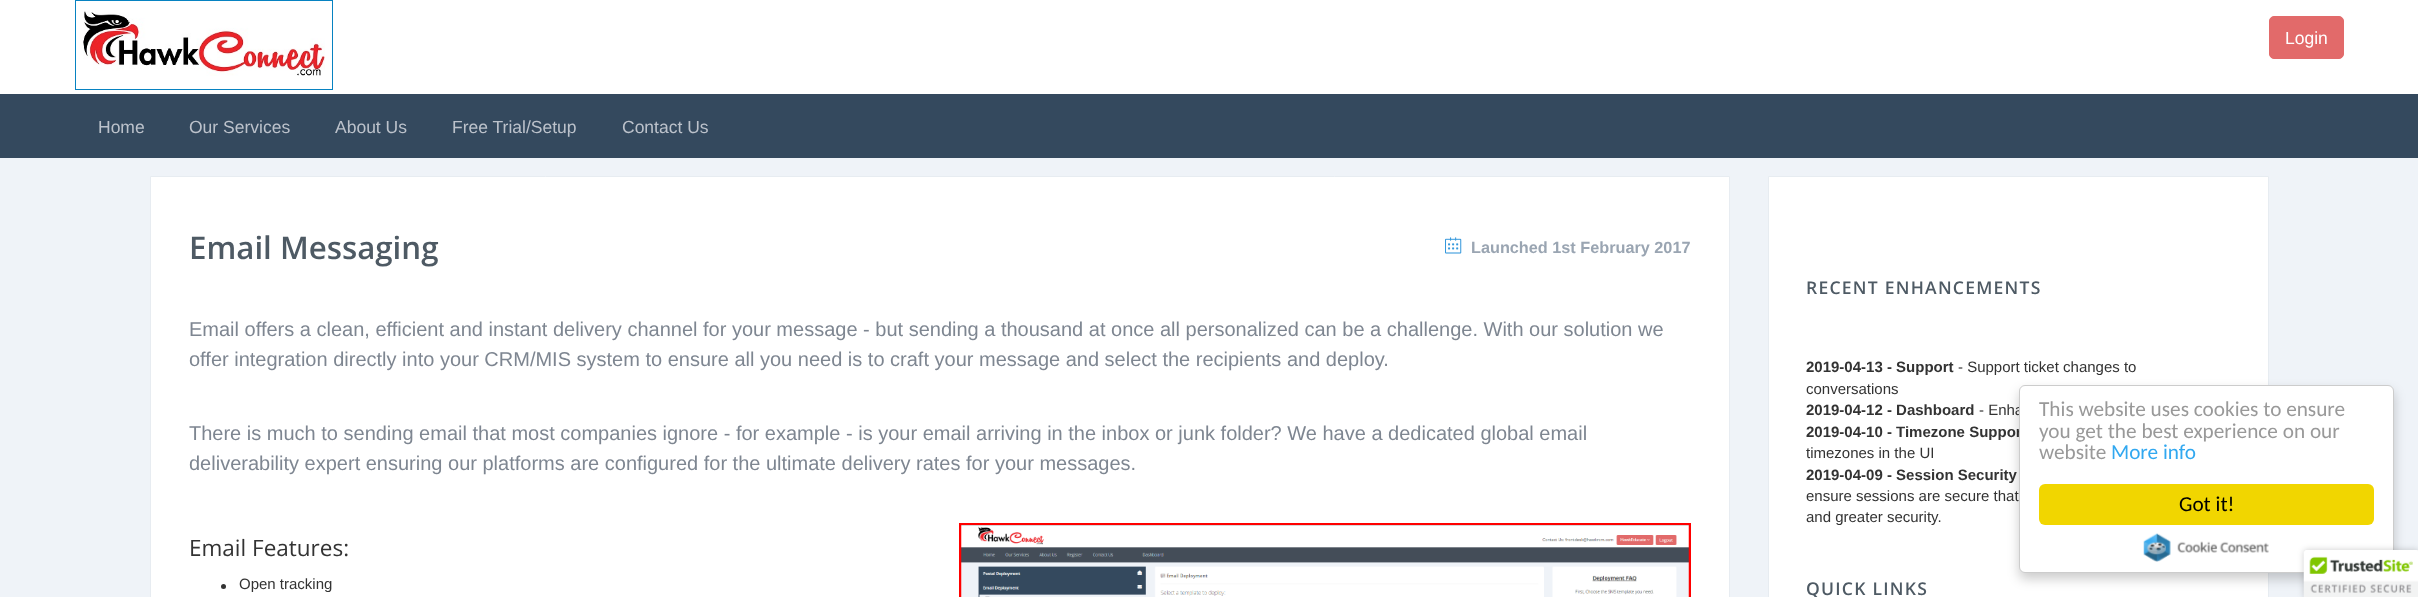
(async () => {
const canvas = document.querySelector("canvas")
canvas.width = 2418
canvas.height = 597
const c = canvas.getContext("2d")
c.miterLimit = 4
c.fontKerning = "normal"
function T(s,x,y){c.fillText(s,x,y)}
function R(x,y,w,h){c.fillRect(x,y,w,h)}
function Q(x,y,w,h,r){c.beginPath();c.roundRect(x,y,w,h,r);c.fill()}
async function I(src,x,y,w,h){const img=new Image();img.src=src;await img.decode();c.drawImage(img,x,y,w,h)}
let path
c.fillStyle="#fff"
R(0,0,2418,597)
await I("1.png",83,11,242,65)
c.strokeStyle="#0782c1"
c.strokeRect(75.5,.5,257,89)
c.fillStyle="#e26a6a"
c.beginPath()
c.roundRect(2269.5,16.5,74,42,4.5)
c.fill()
c.strokeStyle="#e26a6a"
c.stroke()
c.font="17.5px Liberation Sans"
c.fillStyle="#fff"
T("Login",2285,44)
c.fillStyle="#34495e"
R(0,94,2418,64)
c.fillStyle="#bcc2cb"
T("Home",98,133)
T("Our Services",189,133)
T("About Us",335,133)
T("Free Trial/Setup",452,133)
T("Contact Us",622,133)
c.fillStyle="#eff3f8"
R(0,158,2418,439)
c.fillStyle="#fff"
c.beginPath()
c.rect(150.5,176.5,1579,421)
c.fill()
c.strokeStyle="#e7ecf1"
c.stroke()
c.font="600 31.25px Open Sans"
c.fillStyle="#4e5a64"
T("Email Messaging",189,259)
await I("2.png",1445,237,17,17)
c.font="bold 16.25px Liberation Sans"
c.fillStyle="#9aa5b2"
T("Launched 1st February 2017",1471,253)
c.font="20px Liberation Sans"
c.fillStyle="#7e8691"
T("Email offers a clean, efficient and instant delivery channel for your message - but sending a thousand at once all personalized can be a challenge. With our solution we",189,336)
T("offer integration directly into your CRM/MIS system to ensure all you need is to craft your message and select the recipients and deploy.",189,366)
T("There is much to sending email that most companies ignore - for example - is your email arriving in the inbox or junk folder? We have a dedicated global email",189,440)
T("deliverability expert ensuring our platforms are configured for the ultimate delivery rates for your messages.",189,470)
c.font="22.5px Open Sans"
c.fillStyle="#333"
T("Email Features:",189,556)
c.beginPath()
c.arc(223.5,586.5,2.5,0,7)
c.fill()
c.font="15px Liberation Sans"
T("Open tracking",239,589)
c.strokeStyle="#f00"
c.lineWidth=3
c.strokeRect(960.5,524.5,729,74)
await I("3.png",961,525,728,72)
c.fillStyle="#fff"
c.beginPath()
c.rect(1768.5,176.5,500,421)
c.fill()
c.strokeStyle="#e7ecf1"
c.lineWidth=1
c.stroke()
c.letterSpacing="1.25px"
c.font="600 17.5px Open Sans"
c.fillStyle="#4e5a64"
T("RECENT ENHANCEMENTS",1806,294)
c.letterSpacing="0px"
c.font="bold 15px Liberation Sans"
c.fillStyle="#333"
T("2019-04-13 - Support",1806,372)
c.font="15px Liberation Sans"
T("- Support ticket changes to",1958,372)
T("conversations",1806,394)
c.font="bold 15px Liberation Sans"
T("2019-04-12 - Dashboard",1806,415)
c.font="15px Liberation Sans"
T("- Enha",1979,415)
c.font="bold 15px Liberation Sans"
T("2019-04-10 - Timezone Suppor",1806,437)
c.font="15px Liberation Sans"
T("timezones in the UI",1806,458)
c.font="bold 15px Liberation Sans"
T("2019-04-09 - Session Security",1806,480)
c.font="15px Liberation Sans"
T("ensure sessions are secure that",1806,501)
T("and greater security.",1806,522)
c.letterSpacing="1.25px"
c.font="600 17.5px Open Sans"
c.fillStyle="#4e5a64"
T("QUICK LINKS",1806,595)
c.fillStyle="#00000033"
c.filter="blur(6px)"
c.beginPath()
c.roundRect(2019,391,375,188,6)
c.fill()
c.filter="none"
c.fillStyle="#fff"
c.beginPath()
c.roundRect(2019.5,385.5,374,187,5.5)
c.fill()
c.strokeStyle="#ccc"
c.stroke()
c.letterSpacing="0px"
c.font="21.25px Carlito"
c.fillStyle="#999"
T("This website uses cookies to ensure",2039,416)
T("you get the best experience on our",2039,438)
T("website",2039,459)
c.fillStyle="#31a8f0"
T("More info",2111,459)
c.fillStyle="#f1d600"
Q(2039,484,335,41,6)
c.fillStyle="#000"
T("Got it!",2179,511)
await I("4.png",2143,533,126,29)
c.fillStyle="#00000033"
c.filter="blur(3px)"
c.beginPath()
c.roundRect(2304,550,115,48,2.5)
c.fill()
c.filter="none"
c.fillStyle="#fff"
path = new Path2D("M2306.5 550h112.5v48h-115v-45.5c0-1.5 1-2.5 2.5-2.5z")
c.fill(path)
await I("5.png",2303,550,115,47)
})()
